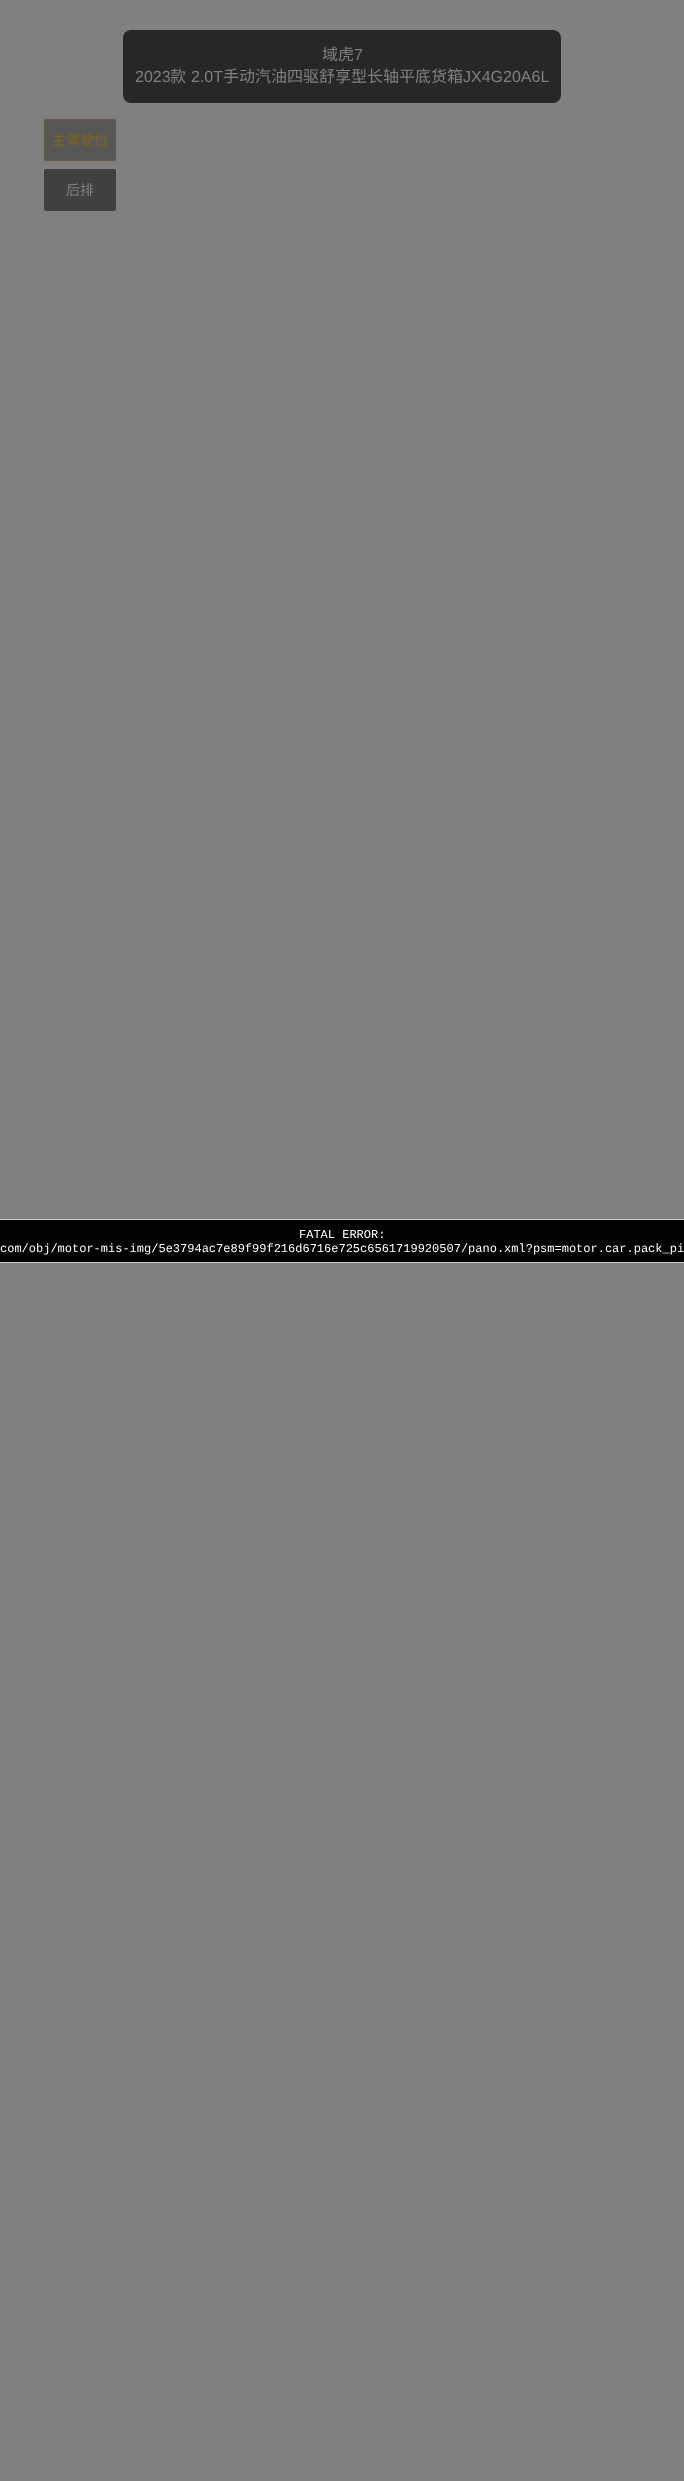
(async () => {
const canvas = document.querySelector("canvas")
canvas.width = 684
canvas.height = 2481
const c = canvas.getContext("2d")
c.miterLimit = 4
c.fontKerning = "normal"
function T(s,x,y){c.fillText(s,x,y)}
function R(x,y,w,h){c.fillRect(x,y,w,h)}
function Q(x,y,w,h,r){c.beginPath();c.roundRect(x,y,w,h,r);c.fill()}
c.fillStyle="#808080"
R(0,0,684,2481)
c.fillStyle="#272727"
Q(123,30,438,73,8)
c.font="16px Noto Sans CJK SC"
c.fillStyle="#808080"
T("域虎",322,60)
c.font="16px Liberation Sans"
T("7",354,60)
T("2023",135,82)
c.font="16px Noto Sans CJK SC"
T("款",170,82)
c.font="16px Liberation Sans"
T("2.0T",191,82)
c.font="16px Noto Sans CJK SC"
T("手动汽油四驱舒享型长轴平底货箱",223,82)
c.font="16px Liberation Sans"
T("JX4G20A6L",463,82)
c.fillStyle="#575757"
Q(44,119,72,42,2)
c.beginPath()
c.roundRect(44.25,119.25,71.5,41.5,1.75)
c.strokeStyle="#806719"
c.lineWidth=0.5
c.stroke()
c.font="14px Noto Sans CJK SC"
c.fillStyle="#806719"
T("主驾驶位",52,145)
c.fillStyle="#404040"
Q(44,169,72,42,2)
c.fillStyle="#808080"
T("后排",66,195)
c.fillStyle="#000"
c.beginPath()
c.rect(-.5,1219.5,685,43)
c.fill()
c.strokeStyle="#ccc"
c.lineWidth=1
c.stroke()
c.font="12px Liberation Mono"
c.fillStyle="#fff"
T("FATAL ERROR:",299,1238)
T("com/obj/motor-mis-img/5e3794ac7e89f99f216d6716e725c6561719920507/pano.xml?psm=motor.car.pack_pi",0,1252)
})()
